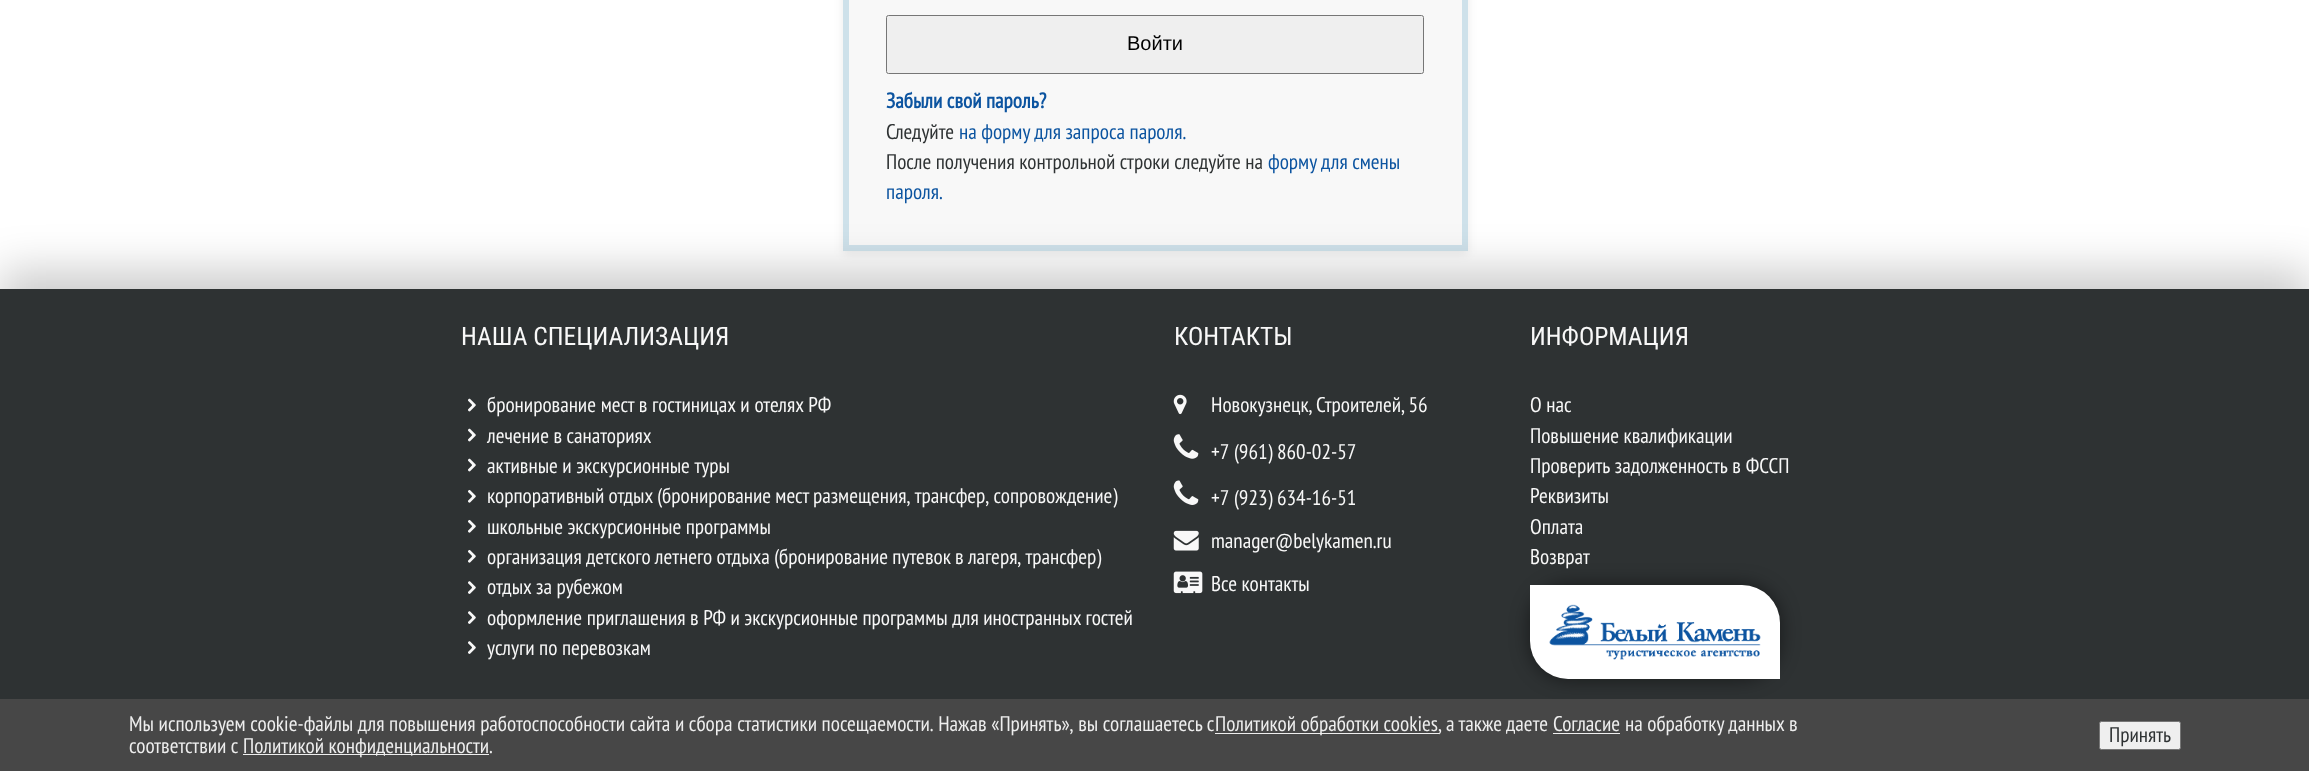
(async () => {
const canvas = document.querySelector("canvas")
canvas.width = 2309
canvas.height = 771
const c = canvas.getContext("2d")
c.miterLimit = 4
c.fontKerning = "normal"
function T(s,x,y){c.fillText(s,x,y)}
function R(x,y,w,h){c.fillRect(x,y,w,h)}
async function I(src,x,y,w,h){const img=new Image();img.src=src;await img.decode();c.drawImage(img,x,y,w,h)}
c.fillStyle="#fff"
R(0,0,2309,771)
c.fillStyle="#00000014"
c.filter="blur(5px)"
c.beginPath()
c.rect(843,-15,625,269)
c.fill()
c.filter="none"
c.fillStyle="#f8f8f8"
c.beginPath()
c.rect(846,-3,619,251)
c.fill()
c.strokeStyle="#cee1ea"
c.lineWidth=6
c.stroke()
c.fillStyle="#efefef"
c.beginPath()
c.roundRect(886.5,15.5,537,58,2)
c.fill()
c.strokeStyle="#767676"
c.lineWidth=1
c.stroke()
c.font="20px Liberation Sans"
c.fillStyle="#000"
T("Войти",1127,50)
c.font="bold 21.25px PT Sans Narrow"
c.fillStyle="#0c54a0"
T("Забыли свой пароль?",886,108)
c.font="21.25px PT Sans Narrow"
c.fillStyle="#2e3233"
T("Следуйте",886,139)
c.fillStyle="#0c54a0"
T("на форму для запроса пароля.",959,139)
c.fillStyle="#2e3233"
T("После получения контрольной строки следуйте на",886,169)
c.fillStyle="#0c54a0"
T("форму для смены",1268,169)
c.fillStyle="#00000033"
c.filter="blur(22px)"
c.beginPath()
c.rect(0,270,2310,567)
c.fill()
c.filter="none"
c.fillStyle="#0c54a0"
T("пароля.",886,199)
c.fillStyle="#2e3233"
R(0,289,2309,410)
c.font="25.5px Roboto Condensed"
c.fillStyle="#f8f8f8"
T("НАША СПЕЦИАЛИЗАЦИЯ",461,345)
await I("1.png",468,398,8,14)
c.wordSpacing="0.25px"
c.font="21.25px PT Sans Narrow"
T("бронирование мест в гостиницах и отелях РФ",487,412)
await I("2.png",468,428,8,14)
c.wordSpacing="0px"
T("лечение в санаториях",487,443)
await I("3.png",468,458,8,14)
T("активные и экскурсионные туры",487,473)
await I("4.png",468,489,8,14)
c.wordSpacing="-0.25px"
T("корпоративный отдых (бронирование мест размещения, трансфер, сопровождение)",487,503)
await I("5.png",468,519,8,14)
c.wordSpacing="0px"
T("школьные экскурсионные программы",487,534)
await I("6.png",468,549,8,14)
c.wordSpacing="-0.25px"
T("организация детского летнего отдыха (бронирование путевок в лагеря, трансфер)",487,564)
await I("7.png",468,581,8,13)
c.wordSpacing="0px"
T("отдых за рубежом",487,594)
await I("8.png",468,611,8,13)
T("оформление приглашения в РФ и экскурсионные программы для иностранных гостей",487,625)
await I("9.png",468,641,8,13)
T("услуги по перевозкам",487,655)
c.font="25.5px Roboto Condensed"
T("КОНТАКТЫ",1174,345)
await I("10.png",1173,394,14,21)
c.wordSpacing="-1px"
c.font="21.25px PT Sans Narrow"
T("Новокузнецк, Строителей, 56",1211,412)
await I("11.png",1173,434,26,25)
c.wordSpacing="0px"
T("+7 (961) 860-02-57",1211,459)
await I("12.png",1173,480,26,25)
T("+7 (923) 634-16-51",1211,505)
await I("13.png",1173,530,26,21)
T("manager@belykamen.ru",1211,548)
await I("14.png",1173,571,30,23)
T("Все контакты",1211,591)
c.font="25.5px Roboto Condensed"
T("ИНФОРМАЦИЯ",1530,345)
c.font="21.25px PT Sans Narrow"
T("О нас",1530,412)
T("Повышение квалификации",1530,443)
c.wordSpacing="0.5px"
T("Проверить задолженность в ФССП",1530,473)
c.wordSpacing="0px"
T("Реквизиты",1530,503)
T("Оплата",1530,534)
c.fillStyle="#00000080"
c.filter="blur(9.5px)"
c.beginPath()
c.roundRect(1530,585,250,94,38)
c.fill()
c.filter="none"
c.fillStyle="#f8f8f8"
T("Возврат",1530,564)
c.fillStyle="#fff"
c.beginPath()
c.roundRect(1530,585,250,94,[0,38,0,38])
c.fill()
await I("15.png",1549,604,212,56)
c.fillStyle="#474747"
R(0,699,2309,72)
c.wordSpacing="0.1px"
c.fillStyle="#eee"
T("Мы используем cookie-файлы для повышения работоспособности сайта и сбора статистики посещаемости. Нажав «Принять», вы соглашаетесь с",129,731)
R(1215,733,224,1)
c.wordSpacing="0px"
T("Политикой обработки cookies",1215,731)
c.wordSpacing="-0.5px"
T(", а также даете",1438,731)
c.wordSpacing="0px"
T("Согласие",1553,731)
R(1553,733,67,1)
T("на обработку данных в",1625,731)
T("соответствии с",129,753)
R(243,754,246,1)
T("Политикой конфиденциальности.",243,753)
c.fillStyle="#efefef"
c.beginPath()
c.roundRect(2099.5,721.5,81,28,2)
c.fill()
c.stroke()
c.fillStyle="#2e3233"
T("Принять",2109,742)
})()
